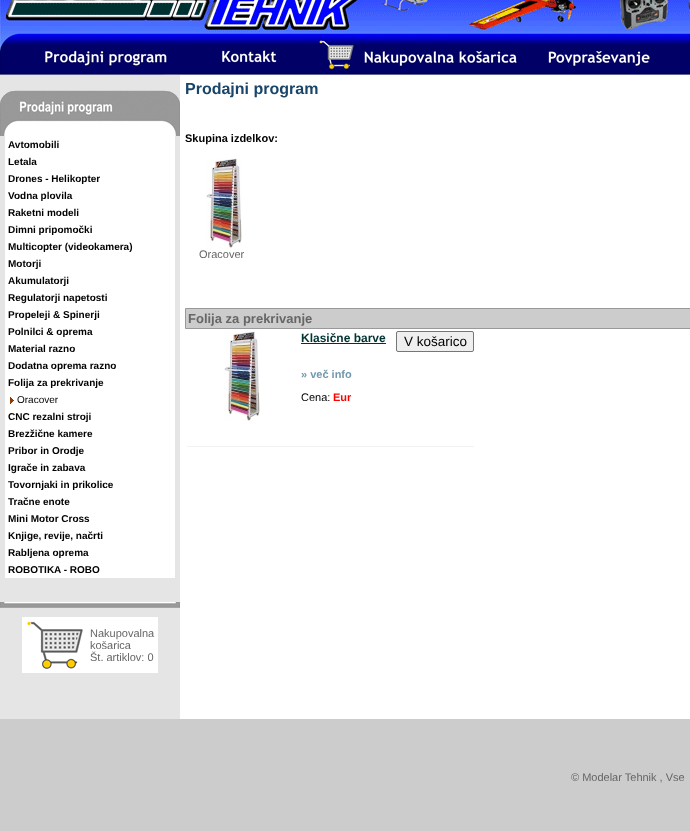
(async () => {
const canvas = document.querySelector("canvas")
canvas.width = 690
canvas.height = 831
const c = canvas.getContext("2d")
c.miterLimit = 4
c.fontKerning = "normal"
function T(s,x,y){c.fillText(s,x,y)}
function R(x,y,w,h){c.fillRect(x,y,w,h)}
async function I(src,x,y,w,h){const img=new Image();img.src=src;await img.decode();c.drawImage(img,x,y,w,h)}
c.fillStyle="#fff"
R(0,0,690,831)
await I("1.png",0,0,690,33)
await I("2.png",0,33,196,42)
await I("3.png",196,33,102,42)
await I("4.png",298,33,230,42)
await I("5.png",528,33,139,42)
await I("6.png",667,33,23,42)
c.fillStyle="#e5e5e5"
R(0,75,180,644)
await I("7.png",0,90,180,46)
c.fillStyle="#fff"
R(5,136,170,442)
c.font="bold 10px Liberation Sans"
c.fillStyle="#000"
T("Avtomobili",8,148)
T("Letala",8,165)
T("Drones - Helikopter",8,182)
T("Vodna plovila",8,199)
T("Raketni modeli",8,216)
T("Dimni pripomočki",8,233)
T("Multicopter (videokamera)",8,250)
T("Motorji",8,267)
T("Akumulatorji",8,284)
T("Regulatorji napetosti",8,301)
T("Propeleji & Spinerji",8,318)
T("Polnilci & oprema",8,335)
T("Material razno",8,352)
T("Dodatna oprema razno",8,369)
T("Folija za prekrivanje",8,386)
await I("8.png",10,397,4,7)
c.font="10px Liberation Sans"
T("Oracover",17,403)
c.font="bold 10px Liberation Sans"
T("CNC rezalni stroji",8,420)
T("Brezžične kamere",8,437)
T("Pribor in Orodje",8,454)
T("Igrače in zabava",8,471)
T("Tovornjaki in prikolice",8,488)
T("Tračne enote",8,505)
T("Mini Motor Cross",8,522)
T("Knjige, revije, načrti",8,539)
T("Rabljena oprema",8,556)
T("ROBOTIKA - ROBO",8,573)
await I("9.png",0,602,180,6)
c.fillStyle="#fff"
R(22,617,136,56)
await I("10.png",27,621,56,48)
c.font="11px Liberation Sans"
c.fillStyle="#666"
T("Nakupovalna",90,637)
T("košarica",90,649)
T("Št. artiklov: 0",90,661)
c.font="bold 16px Liberation Sans"
c.fillStyle="#19456a"
T("Prodajni program",185,94)
c.font="bold 11px Liberation Sans"
c.fillStyle="#000"
T("Skupina izdelkov:",185,142)
await I("11.png",206,158,36,90)
c.font="11px Liberation Sans"
c.fillStyle="#666"
T("Oracover",199,258)
c.fillStyle="#ccc"
c.beginPath()
c.rect(185.5,308.5,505,20)
c.fill()
c.strokeStyle="#999"
c.stroke()
c.font="bold 13px Liberation Sans"
c.fillStyle="#666"
T("Folija za prekrivanje",188,323)
await I("11.png",224,331,36,90)
c.font="bold 12px Liberation Sans"
c.fillStyle="#033"
T("Klasične barve",301,342)
R(301,343,85,1)
c.font="bold 11px Liberation Sans"
c.fillStyle="#7198ac"
T("» več info",301,378)
c.font="11px Liberation Sans"
c.fillStyle="#000"
T("Cena:",301,401)
c.font="bold 11px Liberation Sans"
c.fillStyle="#f00"
T("Eur",333,401)
c.fillStyle="#efefef"
c.beginPath()
c.roundRect(396.5,331.5,77,20,1.5)
c.fill()
c.strokeStyle="#767676"
c.stroke()
c.font="13.5px Liberation Sans"
c.fillStyle="#000"
T("V košarico",404,346)
c.fillStyle="#f1f2f2"
R(187,446,287,1)
c.fillStyle="#ccc"
R(0,719,690,112)
c.font="11px Liberation Sans"
c.fillStyle="#666"
T("© Modelar Tehnik , Vse",571,781)
})()
